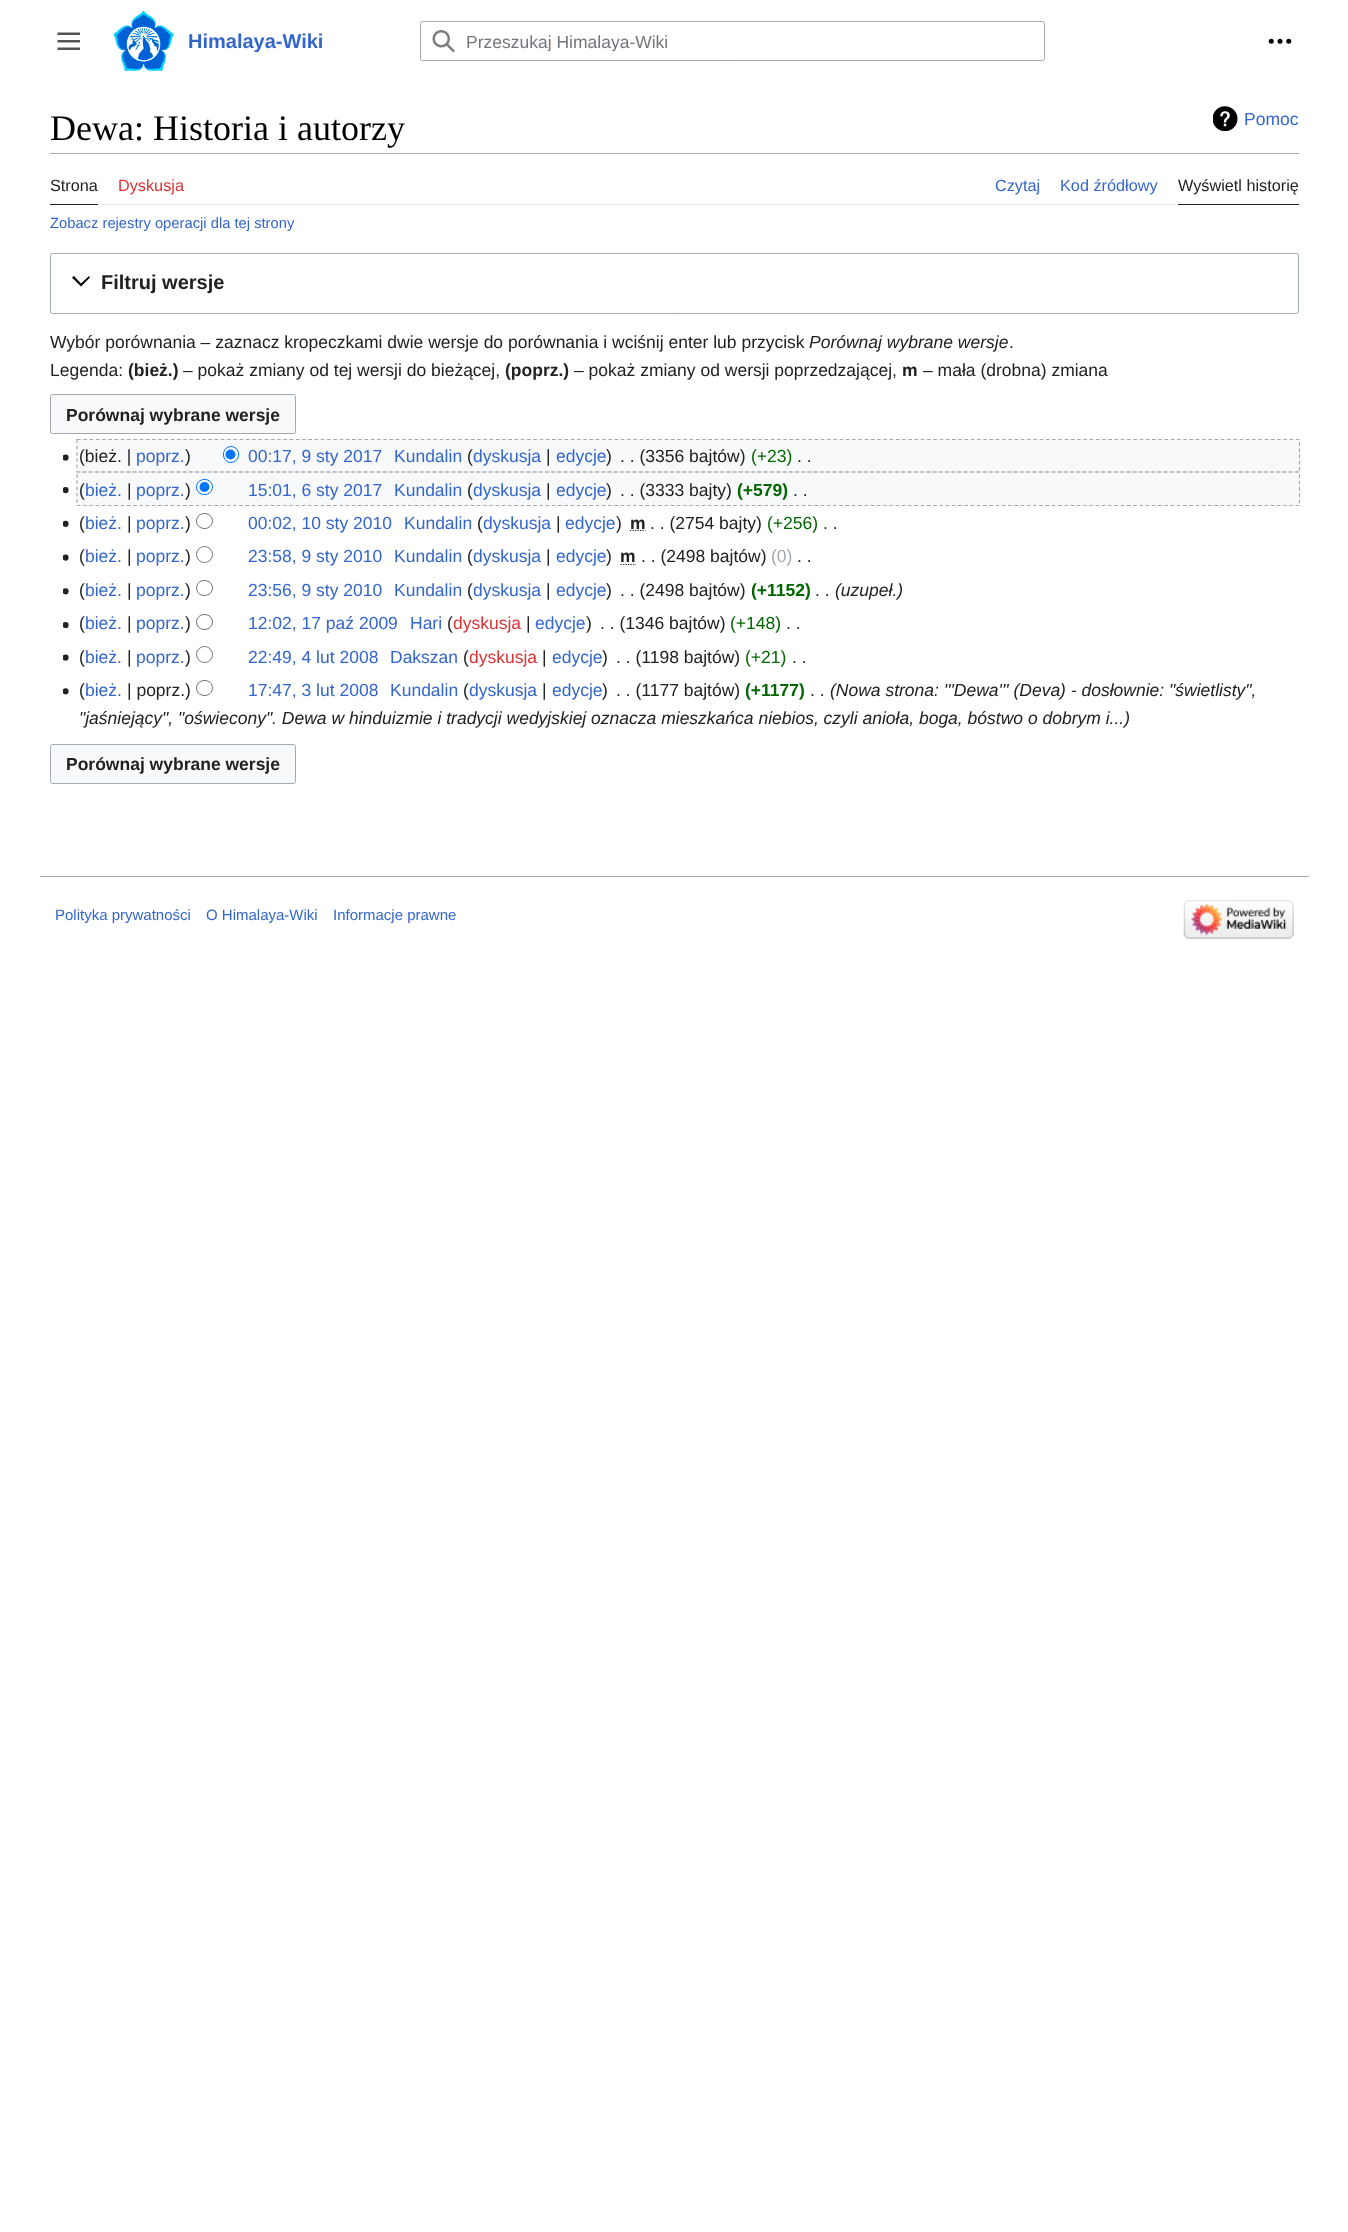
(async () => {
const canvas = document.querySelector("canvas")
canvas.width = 1348
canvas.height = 2232
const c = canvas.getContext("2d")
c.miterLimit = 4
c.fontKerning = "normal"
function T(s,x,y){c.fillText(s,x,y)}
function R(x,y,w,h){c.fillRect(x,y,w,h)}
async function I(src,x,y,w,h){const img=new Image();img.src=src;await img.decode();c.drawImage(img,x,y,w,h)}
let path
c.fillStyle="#fff"
R(0,0,1348,2232)
await I("1.png",57,32,23,18)
await I("2.png",113,10,62,61)
c.font="bold 20px Liberation Sans"
c.fillStyle="#36c"
T("Himalaya-Wiki",188,48)
c.beginPath()
c.roundRect(420.5,21.5,624,39,2)
c.strokeStyle="#a2a9b1"
c.stroke()
await I("3.png",432,30,23,23)
c.save()
c.beginPath()
c.rect(466,31,568,20)
c.clip()
c.font="17.5px Liberation Sans"
c.fillStyle="#72777d"
T("Przeszukaj Himalaya-Wiki",466,48)
c.restore()
await I("4.png",1268,38,24,6)
c.fillStyle="#a2a9b1"
R(50,153,1249,1)
c.font="36px Liberation Serif"
c.fillStyle="#000"
T("Dewa: Historia i autorzy",50,140)
await I("5.png",1213,106,25,25)
c.font="17.5px Liberation Sans"
c.fillStyle="#36c"
T("Pomoc",1244,125)
c.fillStyle="#eaecf0"
R(98,204,1080,1)
c.fillStyle="#202122"
R(50,204,48,1)
c.font="16.25px Liberation Sans"
T("Strona",50,191)
c.fillStyle="#d33"
T("Dyskusja",118,191)
c.fillStyle="#36c"
T("Czytaj",995,191)
T("Kod źródłowy",1060,191)
c.fillStyle="#202122"
R(1178,204,121,1)
T("Wyświetl historię",1178,191)
c.font="14.75px Liberation Sans"
c.fillStyle="#36c"
T("Zobacz rejestry operacji dla tej strony",50,228)
c.beginPath()
c.roundRect(50.5,253.5,1248,60,2)
c.stroke()
c.fillStyle="#000"
path = new Path2D("M89 276l-8 7.5l-7-7.5l-2 1.5l9 9l9-9z")
c.fill(path)
c.font="bold 20px Liberation Sans"
c.fillStyle="#202122"
T("Filtruj wersje",101,289)
c.font="17.5px Liberation Sans"
T("Wybór porównania – zaznacz kropeczkami dwie wersje do porównania i wciśnij enter lub przycisk",50,348)
c.font="italic 17.5px Liberation Sans"
T("Porównaj wybrane wersje",809,348)
c.font="17.5px Liberation Sans"
T(".",1009,348)
T("Legenda:",50,376)
c.font="bold 17.5px Liberation Sans"
T("(bież.)",128,376)
c.font="17.5px Liberation Sans"
T("– pokaż zmiany od tej wersji do bieżącej,",183,376)
c.font="bold 17.5px Liberation Sans"
T("(poprz.)",505,376)
c.font="17.5px Liberation Sans"
T("– pokaż zmiany od wersji poprzedzającej,",574,376)
c.font="bold 17.5px Liberation Sans"
T("m",902,376)
c.font="17.5px Liberation Sans"
T("– mała (drobna) zmiana",923,376)
c.fillStyle="#f8f9fa"
c.beginPath()
c.roundRect(50.5,394.5,245,39,2)
c.fill()
c.stroke()
c.font="bold 17.5px Liberation Sans"
c.fillStyle="#202122"
T("Porównaj wybrane wersje",66,421)
c.fillStyle="#f8f9fa"
R(78,440,1221,31)
await I("6.png",63,454,6,7)
c.font="17.5px Liberation Sans"
c.fillStyle="#202122"
T("(bież. |",79,462)
c.fillStyle="#36c"
T("poprz.",136,462)
c.fillStyle="#202122"
T(")",185,462)
c.fillStyle="#fff"
c.beginPath()
c.roundRect(223.5,446.5,15,16,7.5)
c.fill()
c.strokeStyle="#0075ff"
c.stroke()
c.fillStyle="#0075ff"
c.beginPath()
c.arc(230.5,454.5,5,0,7)
c.fill()
c.fillStyle="#36c"
T("00:17, 9 sty 2017",248,462)
T("Kundalin",394,462)
c.fillStyle="#202122"
T("(",467,462)
c.fillStyle="#36c"
T("dyskusja",473,462)
c.fillStyle="#202122"
T("|",546,462)
c.fillStyle="#36c"
T("edycje",556,462)
c.fillStyle="#202122"
T(")",606,462)
T(". . (3356 bajtów)",620,462)
c.fillStyle="#060"
T("(+23)",751,462)
c.fillStyle="#202122"
T(". .",797,462)
path = new Path2D("M77 439.5h1222.5v32.5h-1222.5z")
c.strokeStyle="#a2a9b1"
c.lineWidth=1.2
c.setLineDash([3.75,2.5])
c.stroke(path)
c.fillStyle="#f8f9fa"
R(78,473,1221,32)
await I("7.png",63,487,6,7)
c.fillStyle="#202122"
T("(",79,496)
c.fillStyle="#36c"
T("bież.",85,496)
c.fillStyle="#202122"
T("|",127,496)
c.fillStyle="#36c"
T("poprz.",136,496)
c.fillStyle="#202122"
T(")",185,496)
c.fillStyle="#fff"
c.beginPath()
c.roundRect(196.5,479.5,16,15,7.5)
c.fill()
c.strokeStyle="#0075ff"
c.lineWidth=1
c.setLineDash([])
c.stroke()
c.fillStyle="#0075ff"
c.beginPath()
c.arc(204.5,487,5,0,7)
c.fill()
c.fillStyle="#36c"
T("15:01, 6 sty 2017",248,496)
T("Kundalin",394,496)
c.fillStyle="#202122"
T("(",467,496)
c.fillStyle="#36c"
T("dyskusja",473,496)
c.fillStyle="#202122"
T("|",546,496)
c.fillStyle="#36c"
T("edycje",556,496)
c.fillStyle="#202122"
T(")",606,496)
T(". . (3333 bajty)",620,496)
c.font="bold 17.5px Liberation Sans"
c.fillStyle="#060"
T("(+579)",737,496)
c.font="17.5px Liberation Sans"
c.fillStyle="#202122"
T(". .",793,496)
path = new Path2D("M77 472h1222.5v33.5h-1222.5z")
c.strokeStyle="#a2a9b1"
c.lineWidth=1.2
c.setLineDash([3.75,2.5])
c.stroke(path)
await I("8.png",63,520,6,7)
T("(",79,529)
c.fillStyle="#36c"
T("bież.",85,529)
c.fillStyle="#202122"
T("|",127,529)
c.fillStyle="#36c"
T("poprz.",136,529)
c.fillStyle="#202122"
T(")",185,529)
c.beginPath()
c.roundRect(196.5,513.5,16,15,7.5)
c.strokeStyle="#767676"
c.lineWidth=1
c.setLineDash([])
c.stroke()
c.fillStyle="#36c"
T("00:02, 10 sty 2010",248,529)
T("Kundalin",404,529)
c.fillStyle="#202122"
T("(",477,529)
c.fillStyle="#36c"
T("dyskusja",483,529)
c.fillStyle="#202122"
T("|",556,529)
c.fillStyle="#36c"
T("edycje",565,529)
c.fillStyle="#202122"
T(")",616,529)
c.font="bold 17.5px Liberation Sans"
T("m",630,529)
path = new Path2D("M630 530.5h15.5")
c.strokeStyle="#202122"
c.lineWidth=1.2
c.setLineDash([1.25,1.25])
c.stroke(path)
c.font="17.5px Liberation Sans"
T(". . (2754 bajty)",650,529)
c.fillStyle="#060"
T("(+256)",767,529)
c.fillStyle="#202122"
T(". .",823,529)
await I("6.png",63,554,6,7)
T("(",79,562)
c.fillStyle="#36c"
T("bież.",85,562)
c.fillStyle="#202122"
T("|",127,562)
c.fillStyle="#36c"
T("poprz.",136,562)
c.fillStyle="#202122"
T(")",185,562)
c.beginPath()
c.arc(204.5,554.5,8,0,7)
c.strokeStyle="#767676"
c.lineWidth=1
c.setLineDash([])
c.stroke()
c.fillStyle="#36c"
T("23:58, 9 sty 2010",248,562)
T("Kundalin",394,562)
c.fillStyle="#202122"
T("(",467,562)
c.fillStyle="#36c"
T("dyskusja",473,562)
c.fillStyle="#202122"
T("|",546,562)
c.fillStyle="#36c"
T("edycje",556,562)
c.fillStyle="#202122"
T(")",606,562)
c.font="bold 17.5px Liberation Sans"
T("m",620,562)
path = new Path2D("M620.5 564.5h15.5")
c.strokeStyle="#202122"
c.lineWidth=1.2
c.setLineDash([1.25,1.25])
c.stroke(path)
c.font="17.5px Liberation Sans"
T(". . (2498 bajtów)",641,562)
c.fillStyle="#a2a9b1"
T("(0)",771,562)
c.fillStyle="#202122"
T(". .",797,562)
await I("9.png",63,588,6,7)
T("(",79,596)
c.fillStyle="#36c"
T("bież.",85,596)
c.fillStyle="#202122"
T("|",127,596)
c.fillStyle="#36c"
T("poprz.",136,596)
c.fillStyle="#202122"
T(")",185,596)
c.beginPath()
c.roundRect(196.5,580.5,16,15,7.5)
c.strokeStyle="#767676"
c.lineWidth=1
c.setLineDash([])
c.stroke()
c.fillStyle="#36c"
T("23:56, 9 sty 2010",248,596)
T("Kundalin",394,596)
c.fillStyle="#202122"
T("(",467,596)
c.fillStyle="#36c"
T("dyskusja",473,596)
c.fillStyle="#202122"
T("|",546,596)
c.fillStyle="#36c"
T("edycje",556,596)
c.fillStyle="#202122"
T(")",606,596)
T(". . (2498 bajtów)",620,596)
c.font="bold 17.5px Liberation Sans"
c.fillStyle="#060"
T("(+1152)",751,596)
c.font="17.5px Liberation Sans"
c.fillStyle="#202122"
T(". .",815,596)
c.font="italic 17.5px Liberation Sans"
T("(uzupeł.)",835,596)
await I("7.png",63,622,6,7)
c.font="17.5px Liberation Sans"
T("(",79,629)
c.fillStyle="#36c"
T("bież.",85,629)
c.fillStyle="#202122"
T("|",127,629)
c.fillStyle="#36c"
T("poprz.",136,629)
c.fillStyle="#202122"
T(")",185,629)
c.beginPath()
c.roundRect(196.5,614.5,16,15,7.5)
c.stroke()
c.fillStyle="#36c"
T("12:02, 17 paź 2009",248,629)
T("Hari",410,629)
c.fillStyle="#202122"
T("(",447,629)
c.fillStyle="#d33"
T("dyskusja",453,629)
c.fillStyle="#202122"
T("|",526,629)
c.fillStyle="#36c"
T("edycje",535,629)
c.fillStyle="#202122"
T(")",586,629)
T(". . (1346 bajtów)",600,629)
c.fillStyle="#060"
T("(+148)",730,629)
c.fillStyle="#202122"
T(". .",786,629)
await I("6.png",63,654,6,7)
T("(",79,663)
c.fillStyle="#36c"
T("bież.",85,663)
c.fillStyle="#202122"
T("|",127,663)
c.fillStyle="#36c"
T("poprz.",136,663)
c.fillStyle="#202122"
T(")",185,663)
c.beginPath()
c.arc(204.5,654.5,8,0,7)
c.stroke()
c.fillStyle="#36c"
T("22:49, 4 lut 2008",248,663)
T("Dakszan",390,663)
c.fillStyle="#202122"
T("(",463,663)
c.fillStyle="#d33"
T("dyskusja",469,663)
c.fillStyle="#202122"
T("|",542,663)
c.fillStyle="#36c"
T("edycje",552,663)
c.fillStyle="#202122"
T(")",602,663)
T(". . (1198 bajtów)",616,663)
c.fillStyle="#060"
T("(+21)",745,663)
c.fillStyle="#202122"
T(". .",792,663)
await I("9.png",63,688,6,7)
T("(",79,696)
c.fillStyle="#36c"
T("bież.",85,696)
c.fillStyle="#202122"
T("| poprz.)",127,696)
c.beginPath()
c.roundRect(196.5,680.5,16,15,7.5)
c.stroke()
c.fillStyle="#36c"
T("17:47, 3 lut 2008",248,696)
T("Kundalin",390,696)
c.fillStyle="#202122"
T("(",463,696)
c.fillStyle="#36c"
T("dyskusja",469,696)
c.fillStyle="#202122"
T("|",542,696)
c.fillStyle="#36c"
T("edycje",552,696)
c.fillStyle="#202122"
T(")",602,696)
T(". . (1177 bajtów)",616,696)
c.font="bold 17.5px Liberation Sans"
c.fillStyle="#060"
T("(+1177)",745,696)
c.font="17.5px Liberation Sans"
c.fillStyle="#202122"
T(". .",810,696)
c.font="italic 17.5px Liberation Sans"
T("(Nowa strona: '''Dewa''' (Deva) - dosłownie: \"świetlisty\",",830,696)
T("\"jaśniejący\", \"oświecony\". Dewa w hinduizmie i tradycji wedyjskiej oznacza mieszkańca niebios, czyli anioła, boga, bóstwo o dobrym i...)",79,724)
c.fillStyle="#f8f9fa"
c.beginPath()
c.roundRect(50.5,744.5,245,39,2)
c.fill()
c.strokeStyle="#a2a9b1"
c.stroke()
c.font="bold 17.5px Liberation Sans"
c.fillStyle="#202122"
T("Porównaj wybrane wersje",66,770)
c.fillStyle="#a2a9b1"
R(40,876,1269,1)
c.font="15px Liberation Sans"
c.fillStyle="#36c"
T("Polityka prywatności",55,920)
T("O Himalaya-Wiki",206,920)
T("Informacje prawne",333,920)
await I("10.png",1183,900,111,39)
})()
